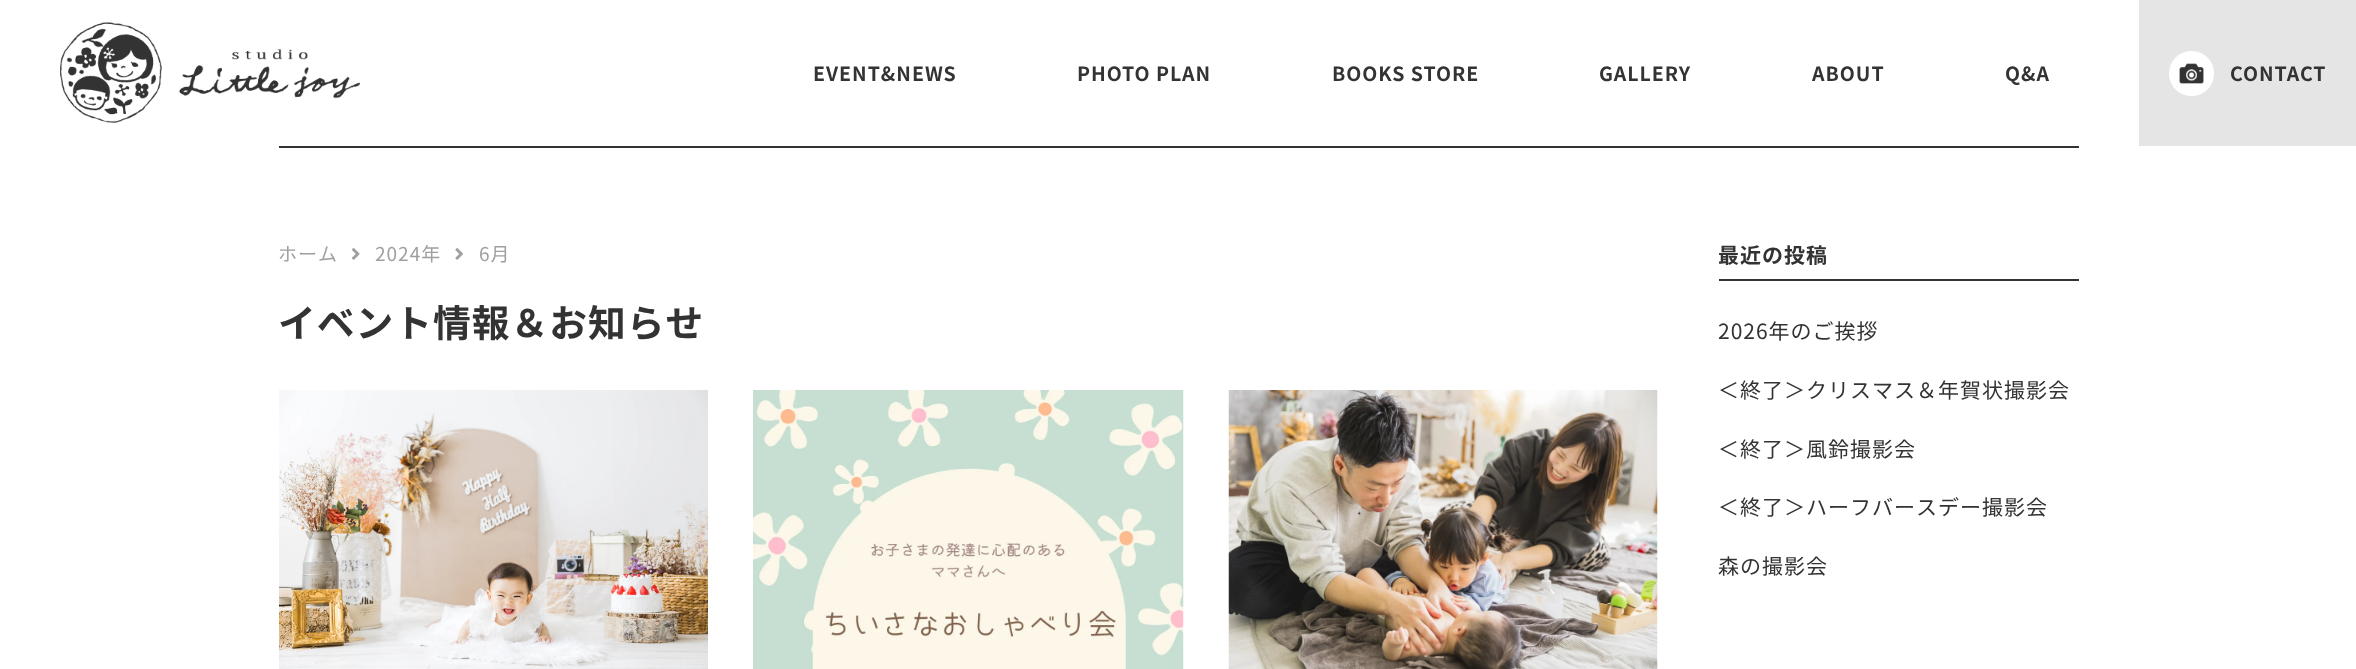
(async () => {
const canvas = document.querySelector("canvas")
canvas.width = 2356
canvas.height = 669
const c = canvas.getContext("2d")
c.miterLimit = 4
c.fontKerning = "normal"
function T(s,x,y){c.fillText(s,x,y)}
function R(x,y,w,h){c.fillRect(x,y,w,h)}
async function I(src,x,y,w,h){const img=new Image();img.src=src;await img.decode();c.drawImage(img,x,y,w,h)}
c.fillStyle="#fff"
R(0,0,2356,669)
await I("1.png",60,22,300,101)
c.letterSpacing="1px"
c.font="bold 19.5px Noto Sans JP"
c.fillStyle="#333"
T("EVENT&NEWS",813,81)
T("PHOTO PLAN",1077,81)
T("BOOKS STORE",1332,81)
T("GALLERY",1599,81)
T("ABOUT",1812,81)
T("Q&A",2005,81)
c.fillStyle="#e5e5e5"
R(2139,0,217,146)
await I("2.png",2169,51,45,45)
c.fillStyle="#333"
T("CONTACT",2230,81)
R(279,146,1800,2)
c.font="19px Noto Sans JP"
c.fillStyle="#a0a0a0"
T("ホーム",278,261)
await I("3.png",352,248,8,12)
T("2024年",375,261)
await I("4.png",455,248,8,12)
T("6月",479,261)
c.font="bold 37.75px Noto Sans JP"
c.fillStyle="#333"
T("イベント情報＆お知らせ",278,337)
await I("5.png",279,390,429,279)
await I("6.png",753,390,431,279)
await I("7.png",1228,390,430,279)
R(1719,279,360,2)
c.font="bold 21px Noto Sans JP"
T("最近の投稿",1718,263)
c.font="21px Noto Sans JP"
T("2026年のご挨拶",1718,339)
T("＜終了＞クリスマス＆年賀状撮影会",1718,398)
T("＜終了＞風鈴撮影会",1718,457)
T("＜終了＞ハーフバースデー撮影会",1718,515)
T("森の撮影会",1718,574)
})()
